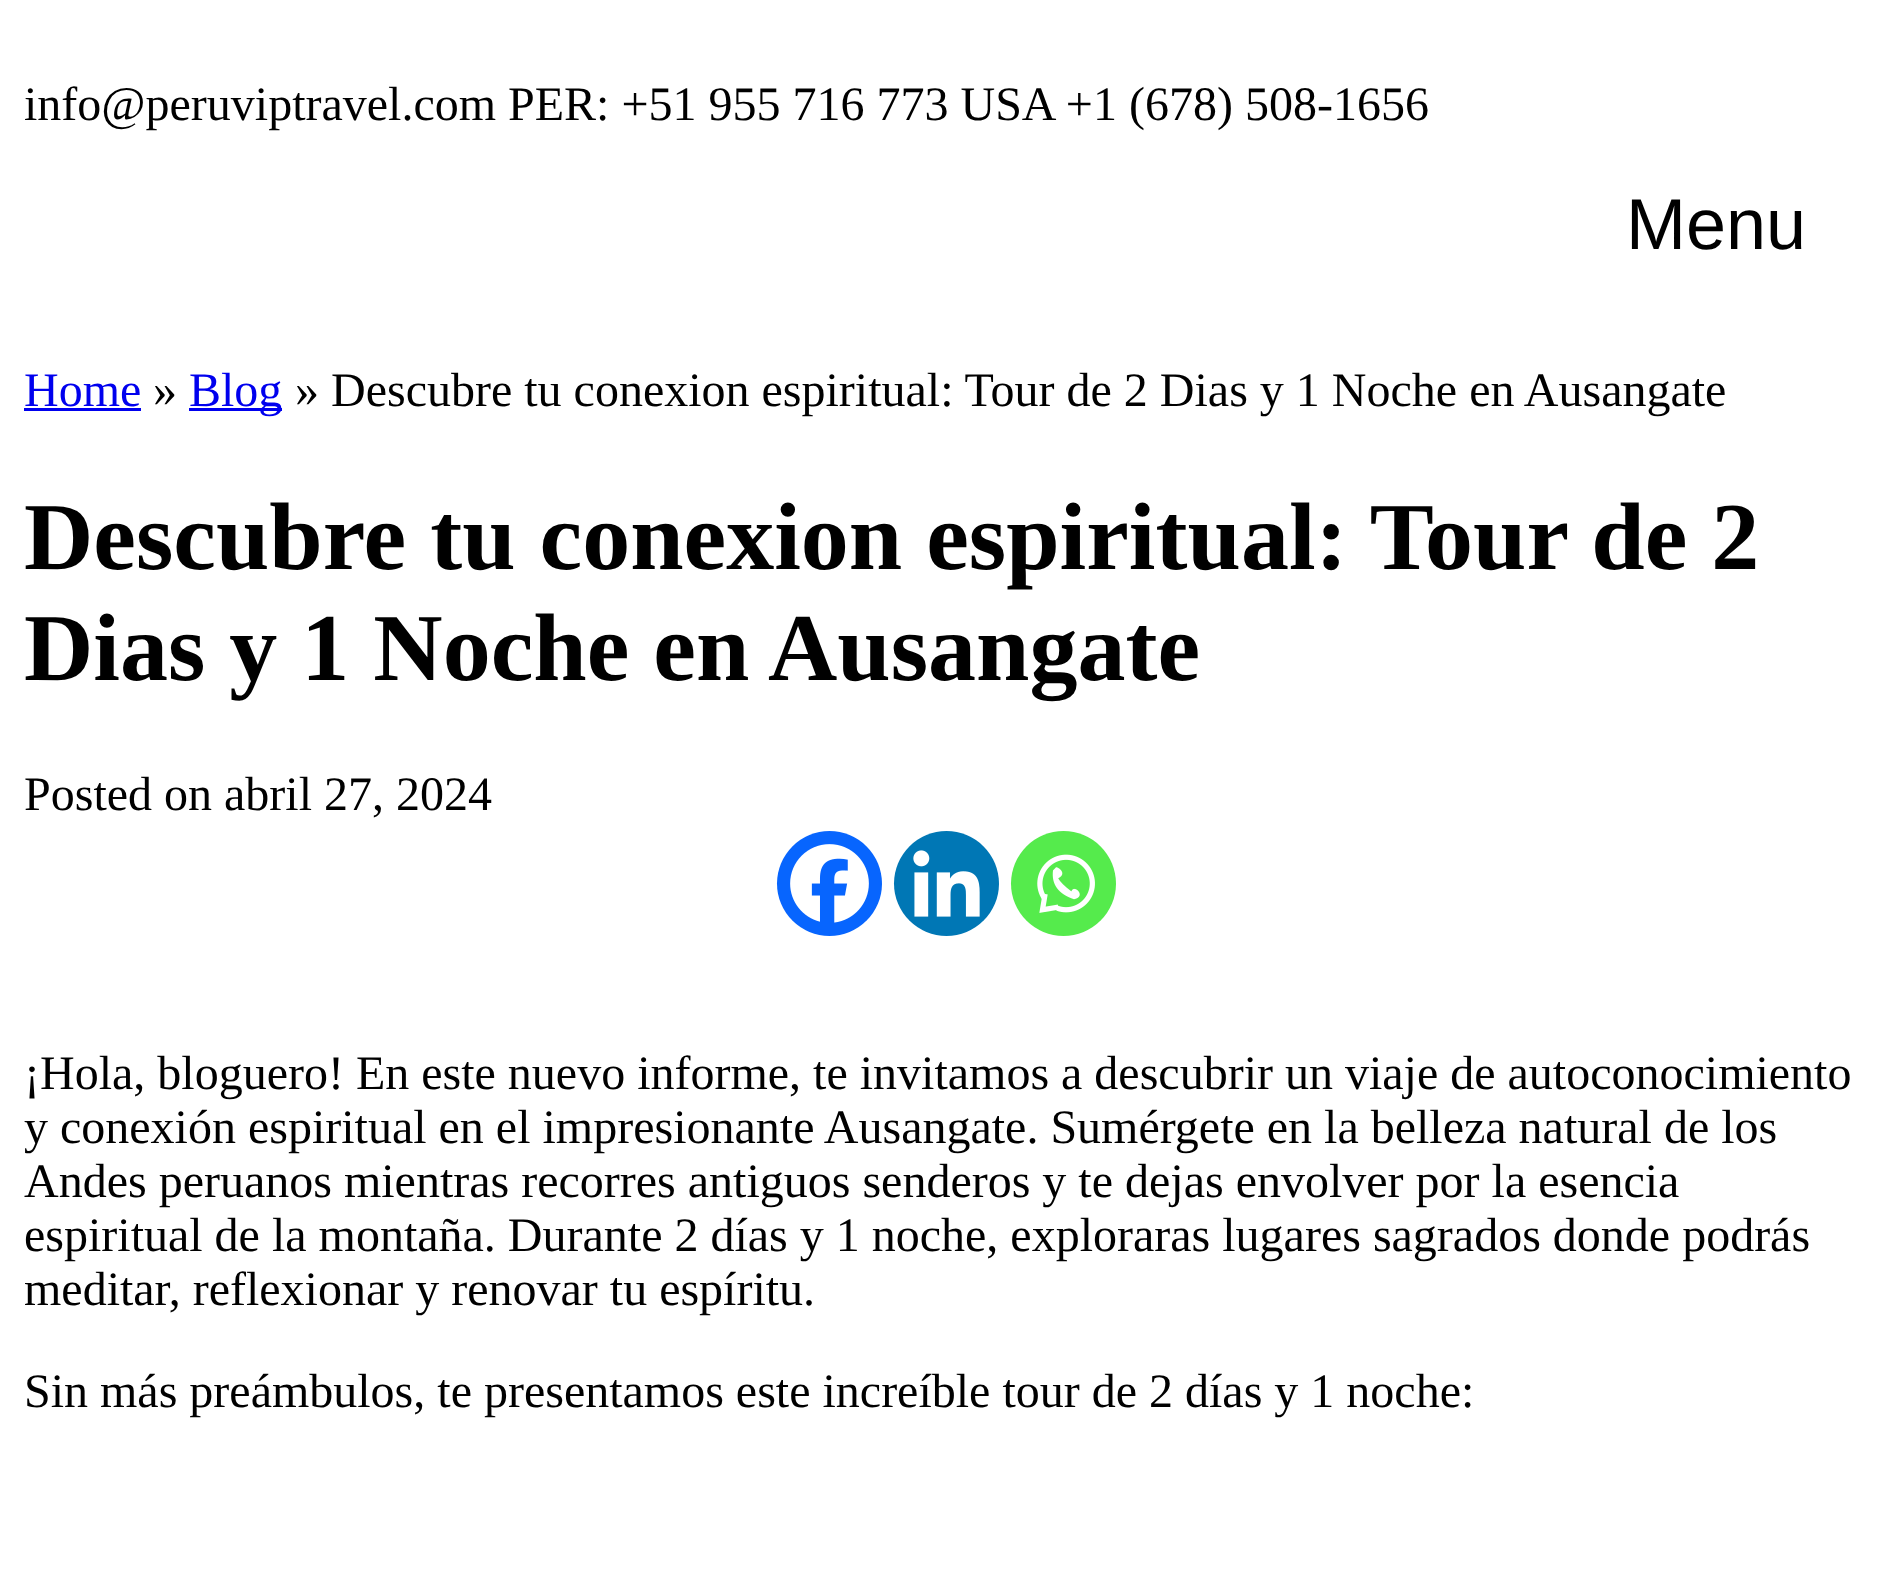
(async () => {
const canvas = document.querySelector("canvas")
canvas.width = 1888
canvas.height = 1595
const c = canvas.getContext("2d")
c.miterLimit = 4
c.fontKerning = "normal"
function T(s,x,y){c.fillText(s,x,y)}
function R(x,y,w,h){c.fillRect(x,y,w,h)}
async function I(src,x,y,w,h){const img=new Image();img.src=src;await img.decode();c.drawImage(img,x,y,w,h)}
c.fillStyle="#fff"
R(0,0,1888,1595)
c.font="48px Liberation Serif"
c.fillStyle="#000"
T("info@peruviptravel.com PER: +51 955 716 773 USA +1 (678) 508-1656",24,120)
c.font="72px Liberation Sans"
T("Menu",1626,249)
c.font="48px Liberation Serif"
c.fillStyle="#00e"
T("Home",24,406)
R(24,408,117,3)
c.fillStyle="#000"
T("»",153,406)
c.fillStyle="#00e"
R(189,408,93,3)
T("Blog",189,406)
c.fillStyle="#000"
T("» Descubre tu conexion espiritual: Tour de 2 Dias y 1 Noche en Ausangate",295,406)
c.font="bold 96px Liberation Serif"
T("Descubre tu conexion espiritual: Tour de 2",24,569)
T("Dias y 1 Noche en Ausangate",24,680)
c.font="48px Liberation Serif"
T("Posted on abril 27, 2024",24,810)
c.fillStyle="#0765fe"
c.beginPath()
c.arc(829.5,883.5,52.5,0,7)
c.fill()
await I("1.png",790,844,79,79)
c.fillStyle="#0077b5"
c.beginPath()
c.arc(946.5,883.5,52.5,0,7)
c.fill()
await I("2.png",913,850,67,67)
c.fillStyle="#55eb4c"
c.beginPath()
c.arc(1063.5,883.5,52.5,0,7)
c.fill()
await I("3.png",1037,854,58,59)
c.fillStyle="#000"
T("¡Hola, bloguero! En este nuevo informe, te invitamos a descubrir un viaje de autoconocimiento",24,1089)
T("y conexión espiritual en el impresionante Ausangate. Sumérgete en la belleza natural de los",24,1143)
T("Andes peruanos mientras recorres antiguos senderos y te dejas envolver por la esencia",24,1197)
T("espiritual de la montaña. Durante 2 días y 1 noche, exploraras lugares sagrados donde podrás",24,1251)
T("meditar, reflexionar y renovar tu espíritu.",24,1305)
T("Sin más preámbulos, te presentamos este increíble tour de 2 días y 1 noche:",24,1407)
})()
